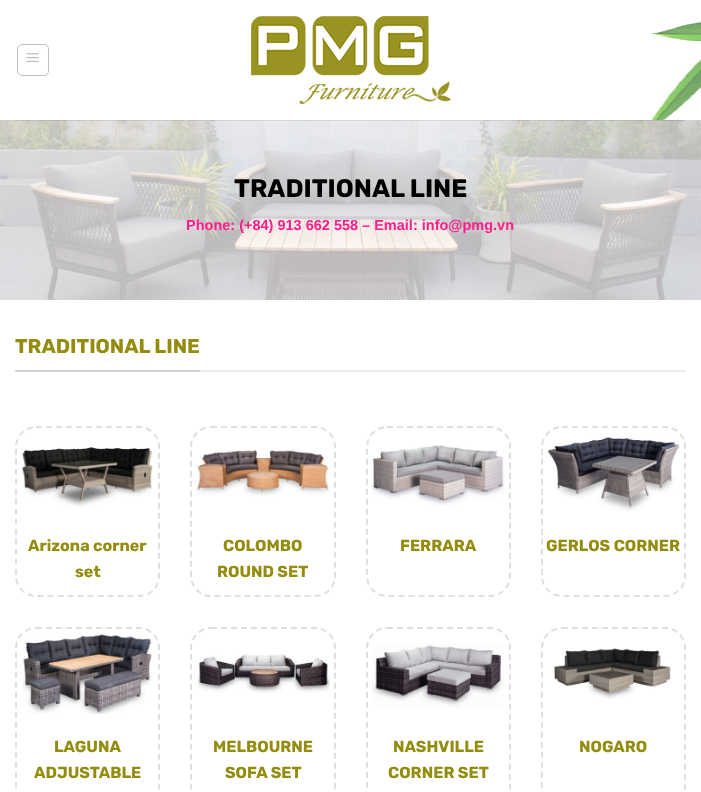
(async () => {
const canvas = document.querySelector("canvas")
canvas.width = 701
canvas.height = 792
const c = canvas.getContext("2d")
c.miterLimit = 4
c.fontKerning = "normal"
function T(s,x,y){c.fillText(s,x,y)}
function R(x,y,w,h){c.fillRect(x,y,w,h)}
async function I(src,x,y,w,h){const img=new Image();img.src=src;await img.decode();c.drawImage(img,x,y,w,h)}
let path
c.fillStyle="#fff"
R(0,0,701,792)
c.beginPath()
c.roundRect(17.5,44.5,31,31,4.5)
c.strokeStyle="#c0c0c0"
c.stroke()
await I("1.png",26,53,13,10)
await I("2.png",251,16,200,88)
await I("4.png",0,120,701,180)
c.fillStyle="#1e1e1e1a"
R(15,120,671,1)
await I("3.png",651,22,50,98)
c.font="300 25.25px Rubik"
c.fillStyle="#000"
T("TRADITIONAL LINE",234,197)
c.font="bold 14.5px Liberation Sans"
c.fillStyle="#ff1d8c"
T("Phone: (+84) 913 662 558 – Email: info@pmg.vn",186,230)
c.fillStyle="#ececec"
R(200,370,486,2)
c.fillStyle="#d4d4d4"
R(15,370,185,2)
c.font="300 20px Rubik"
c.fillStyle="#938c0d"
T("TRADITIONAL LINE",15,353)
await I("5.png",20,447,133,60)
c.font="300 16px Rubik"
T("Arizona corner",28,551)
T("set",75,577)
path = new Path2D("M36 427h103c11 0 20 9 20 20v129c0 11-9 20-20 20h-103c-11 0-20-9-20-20v-129c0-11 9-20 20-20z")
c.strokeStyle="#dfdfdf"
c.lineWidth=2
c.setLineDash([6,4])
c.stroke(path)
await I("6.png",195,449,134,48)
T("COLOMBO",223,551)
T("ROUND SET",217,577)
path = new Path2D("M211 427h104c11 0 20 9 20 20v129c0 11-9 20-20 20h-104c-11 0-20-9-20-20v-129c0-11 9-20 20-20z")
c.stroke(path)
await I("7.png",371,445,134,61)
T("FERRARA",400,551)
path = new Path2D("M387 427h103c11 0 20 9 20 20v129c0 11-9 20-20 20h-103c-11 0-20-9-20-20v-129c0-11 9-20 20-20z")
c.stroke(path)
await I("8.png",547,436,133,76)
T("GERLOS CORNER",546,551)
path = new Path2D("M562 427h103c11 0 20 9 20 20v129c0 11-9 20-20 20h-103c-11 0-20-9-20-20v-129c0-11 9-20 20-20z")
c.stroke(path)
await I("9.png",22,633,131,81)
T("LAGUNA",54,752)
T("ADJUSTABLE",34,778)
path = new Path2D("M36 628h103c11 0 20 9 20 20v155c0 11-9 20-20 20h-103c-11 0-20-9-20-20v-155c0-11 9-20 20-20z")
c.stroke(path)
await I("10.png",197,654,133,39)
T("MELBOURNE",213,752)
T("SOFA SET",225,778)
path = new Path2D("M211 628h104c11 0 20 9 20 20v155c0 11-9 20-20 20h-104c-11 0-20-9-20-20v-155c0-11 9-20 20-20z")
c.stroke(path)
await I("11.png",372,643,132,65)
T("NASHVILLE",393,752)
T("CORNER SET",388,778)
path = new Path2D("M387 628h103c11 0 20 9 20 20v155c0 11-9 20-20 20h-103c-11 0-20-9-20-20v-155c0-11 9-20 20-20z")
c.stroke(path)
await I("12.png",554,648,117,51)
T("NOGARO",579,752)
path = new Path2D("M562 628h103c11 0 20 9 20 20v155c0 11-9 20-20 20h-103c-11 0-20-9-20-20v-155c0-11 9-20 20-20z")
c.stroke(path)
})()
